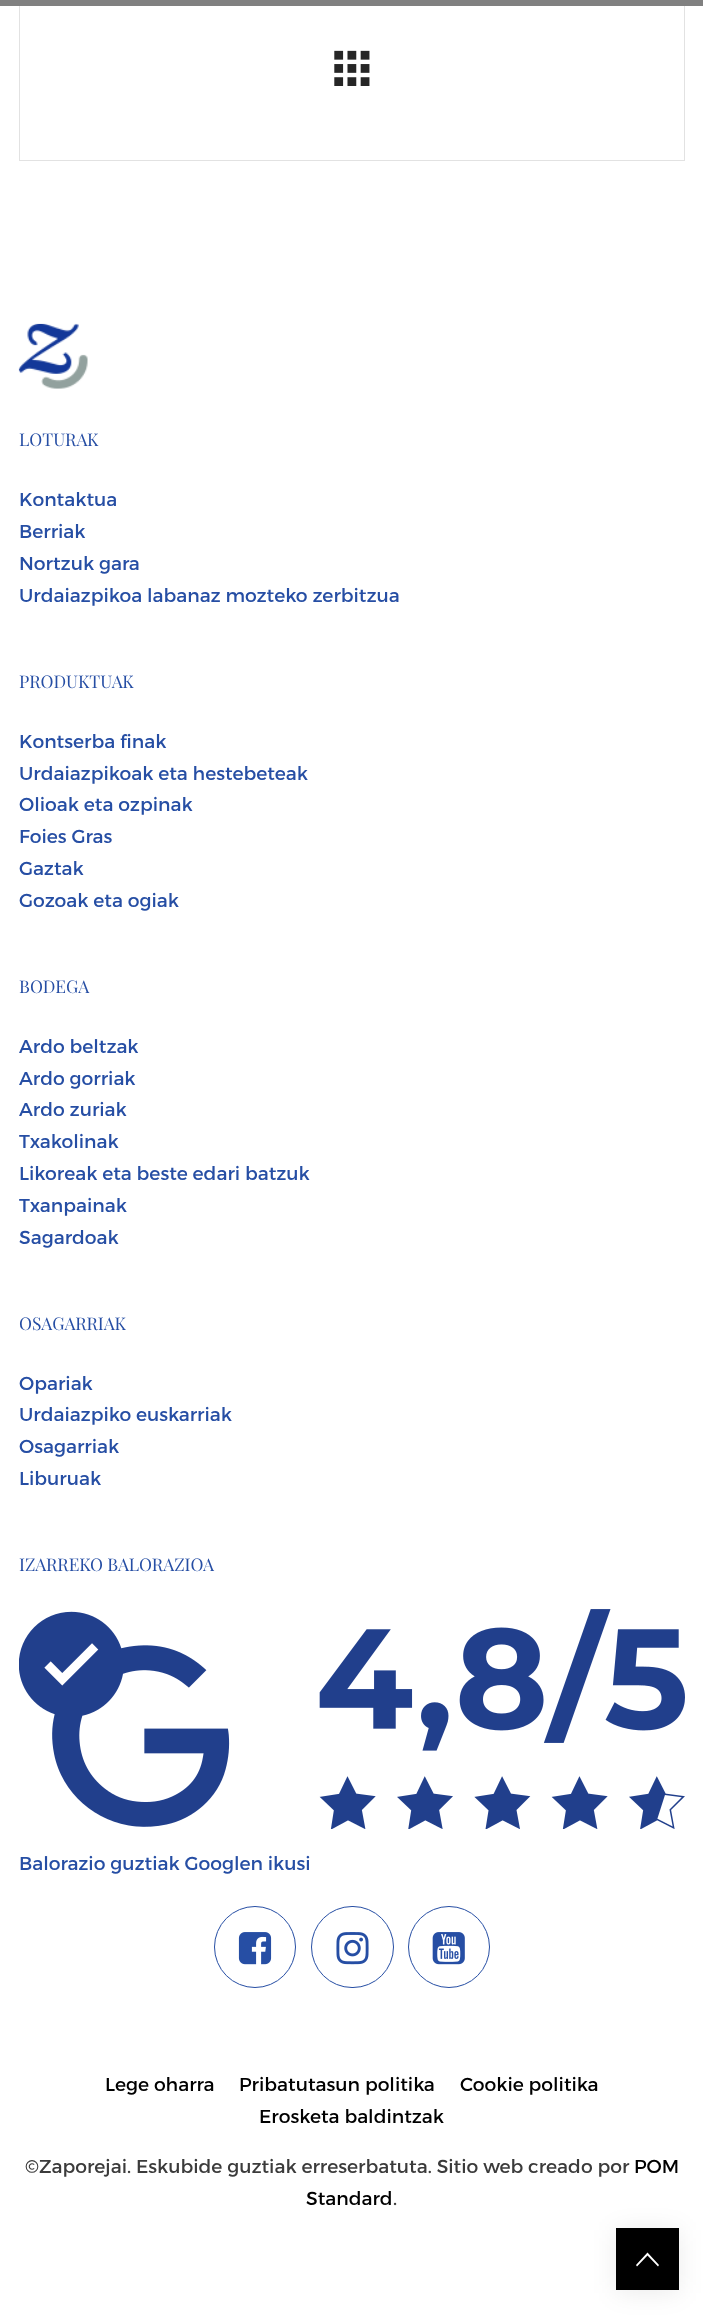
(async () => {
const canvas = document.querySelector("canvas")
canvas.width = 703
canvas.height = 2315
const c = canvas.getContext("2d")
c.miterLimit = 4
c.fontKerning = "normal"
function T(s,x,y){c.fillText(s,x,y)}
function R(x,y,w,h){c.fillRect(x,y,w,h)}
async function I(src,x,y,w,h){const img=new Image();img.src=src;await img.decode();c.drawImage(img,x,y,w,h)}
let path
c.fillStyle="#fff"
R(0,0,703,2315)
c.strokeStyle="#e2e2e2"
c.strokeRect(19.5,-.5,665,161)
await I("1.png",334,50,36,36)
c.fillStyle="#808080"
R(0,0,703,6)
await I("2.png",18,323,70,66)
c.font="17.5px Playfair Display"
c.fillStyle="#264ea4"
T("LOTURAK",19,446)
c.font="18.75px Montserrat"
T("Kontaktua",19,506)
T("Berriak",19,538)
T("Nortzuk gara",19,570)
T("Urdaiazpikoa labanaz mozteko zerbitzua",19,602)
c.font="17.5px Playfair Display"
T("PRODUKTUAK",19,688)
c.font="18.75px Montserrat"
T("Kontserba finak",19,748)
T("Urdaiazpikoak eta hestebeteak",19,780)
T("Olioak eta ozpinak",19,811)
T("Foies Gras",19,843)
T("Gaztak",19,875)
T("Gozoak eta ogiak",19,907)
c.font="17.5px Playfair Display"
T("BODEGA",19,993)
c.font="18.75px Montserrat"
T("Ardo beltzak",19,1053)
T("Ardo gorriak",19,1085)
T("Ardo zuriak",19,1116)
T("Txakolinak",19,1148)
T("Likoreak eta beste edari batzuk",19,1180)
T("Txanpainak",19,1212)
T("Sagardoak",19,1244)
c.font="17.5px Playfair Display"
T("OSAGARRIAK",19,1330)
c.font="18.75px Montserrat"
T("Opariak",19,1390)
T("Urdaiazpiko euskarriak",19,1421)
T("Osagarriak",19,1453)
T("Liburuak",19,1485)
c.font="17.5px Playfair Display"
T("IZARREKO BALORAZIOA",19,1571)
await I("3.png",19,1609,666,220)
c.font="18.75px Montserrat"
T("Balorazio guztiak Googlen ikusi",19,1870)
c.beginPath()
c.arc(255,1947,40.5,0,7)
c.strokeStyle="#264ea4"
c.stroke()
await I("4.png",238,1932,34,33)
c.beginPath()
c.roundRect(311.5,1906.5,82,81,40.5)
c.stroke()
await I("5.png",336,1932,33,33)
c.beginPath()
c.arc(449,1947,40.5,0,7)
c.stroke()
await I("6.png",432,1932,33,33)
c.fillStyle="#000"
T("Lege oharra",105,2091)
T("Pribatutasun politika",239,2091)
T("Cookie politika",460,2091)
T("Erosketa baldintzak",259,2123)
c.fillStyle="#3b3b3b"
T("©Zaporejai. Eskubide guztiak erreserbatuta. Sitio web creado por",25,2173)
c.fillStyle="#000"
T("POM",634,2173)
T("Standard",306,2205)
c.fillStyle="#3b3b3b"
T(".",393,2205)
c.fillStyle="#00000014"
c.filter="blur(12.5px)"
c.beginPath()
c.rect(616,2230,63,63)
c.fill()
c.filter="none"
c.fillStyle="#000"
R(616,2228,63,62)
c.fillStyle="#fff"
path = new Path2D("M658 2266.5l1-1.5l-11.5-12.5l-11.5 12.5l1 1.5l10.5-11z")
c.fill(path)
})()
